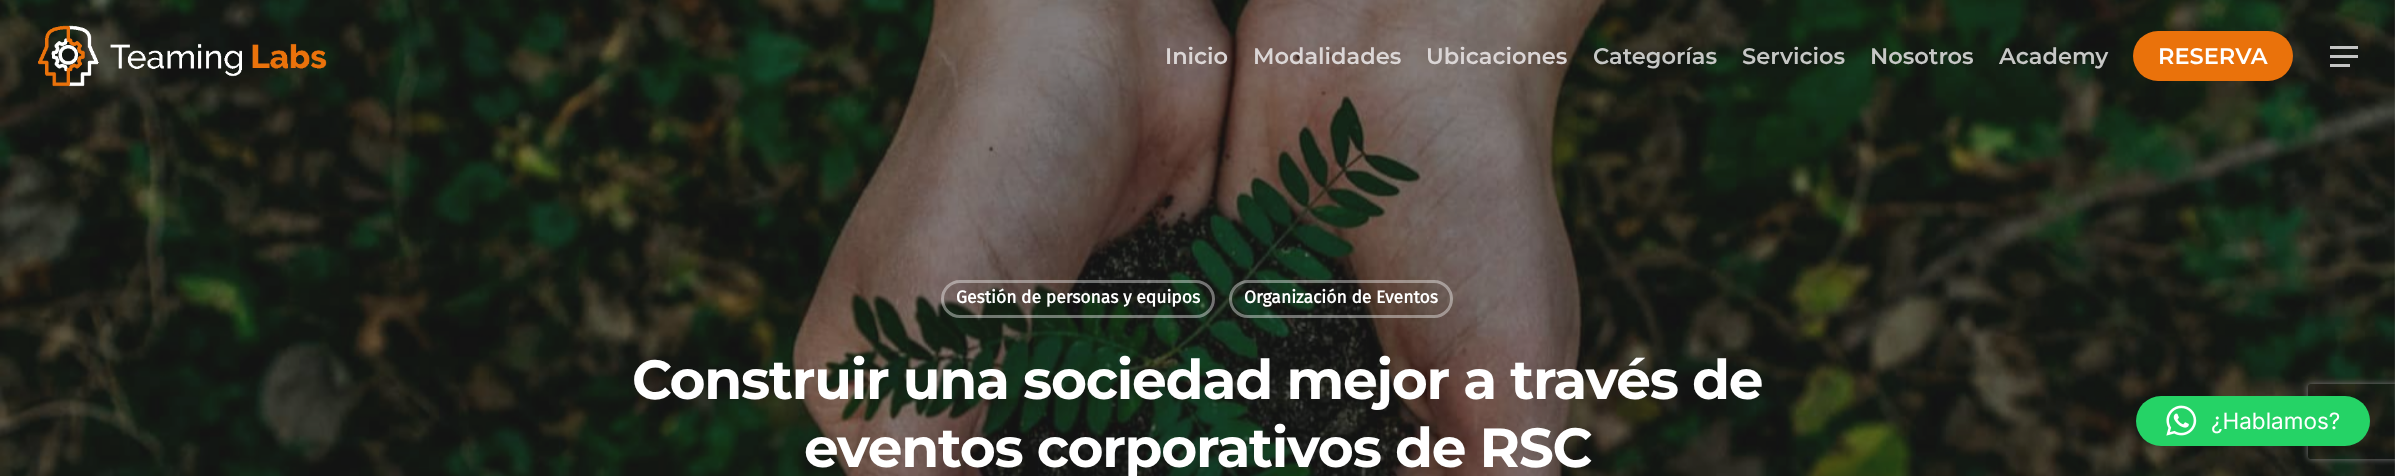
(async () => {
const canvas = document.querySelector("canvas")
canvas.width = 2395
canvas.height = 476
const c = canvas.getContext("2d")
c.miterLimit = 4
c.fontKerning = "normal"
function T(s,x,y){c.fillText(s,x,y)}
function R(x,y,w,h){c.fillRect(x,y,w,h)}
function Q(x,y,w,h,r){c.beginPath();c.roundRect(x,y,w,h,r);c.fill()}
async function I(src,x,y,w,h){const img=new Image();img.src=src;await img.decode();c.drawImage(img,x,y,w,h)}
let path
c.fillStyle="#fff"
R(0,0,2395,476)
await I("2.png",0,0,2395,476)
await I("1.png",38,25,289,62)
c.font="600 22.5px Montserrat"
c.fillStyle="#dbd6d6"
T("Inicio",1165,64)
T("Modalidades",1253,64)
T("Ubicaciones",1426,64)
c.fillStyle="#c6c7c5"
T("Categorías",1593,64)
T("Servicios",1742,64)
T("Nosotros",1870,64)
T("Academy",1999,64)
c.fillStyle="#ea720b"
Q(2133,31,160,50,25)
c.fillStyle="#fff"
T("RESERVA",2158,64)
c.fillStyle="#ffffffbf"
R(2330,46,28,3)
R(2330,64,20,3)
R(2330,55,28,3)
c.beginPath()
c.roundRect(942.5,281.5,271,35,17.5)
c.strokeStyle="#ffffff66"
c.lineWidth=3
c.stroke()
c.font="bold 17.5px Fira Sans"
c.fillStyle="#fff"
T("Gestión de personas y equipos",956,303)
c.beginPath()
c.roundRect(1230.5,281.5,221,35,17.5)
c.stroke()
T("Organización de Eventos",1244,303)
c.letterSpacing="-1.25px"
c.font="bold 55px Montserrat"
T("Construir una sociedad mejor a través de",632,399)
T("eventos corporativos de RSC",804,467)
c.save()
path = new Path2D("M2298 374h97v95h-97zm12.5 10h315c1.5 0 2.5 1 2.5 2.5v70c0 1.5-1 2.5-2.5 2.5h-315c-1.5 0-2.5-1-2.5-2.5v-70c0-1.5 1-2.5 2.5-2.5z")
c.clip(path,"evenodd")
c.fillStyle="#808080"
c.filter="blur(3px)"
c.beginPath()
c.roundRect(2308,384,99,75,2.5)
c.fill()
c.filter="none"
c.restore()
c.fillStyle="#25d366"
Q(2136,396,234,50,25)
await I("3.png",2166,405,31,31)
c.letterSpacing="0px"
c.font="22.5px Inter"
c.fillStyle="#fff"
T("¿Hablamos?",2211,429)
})()
